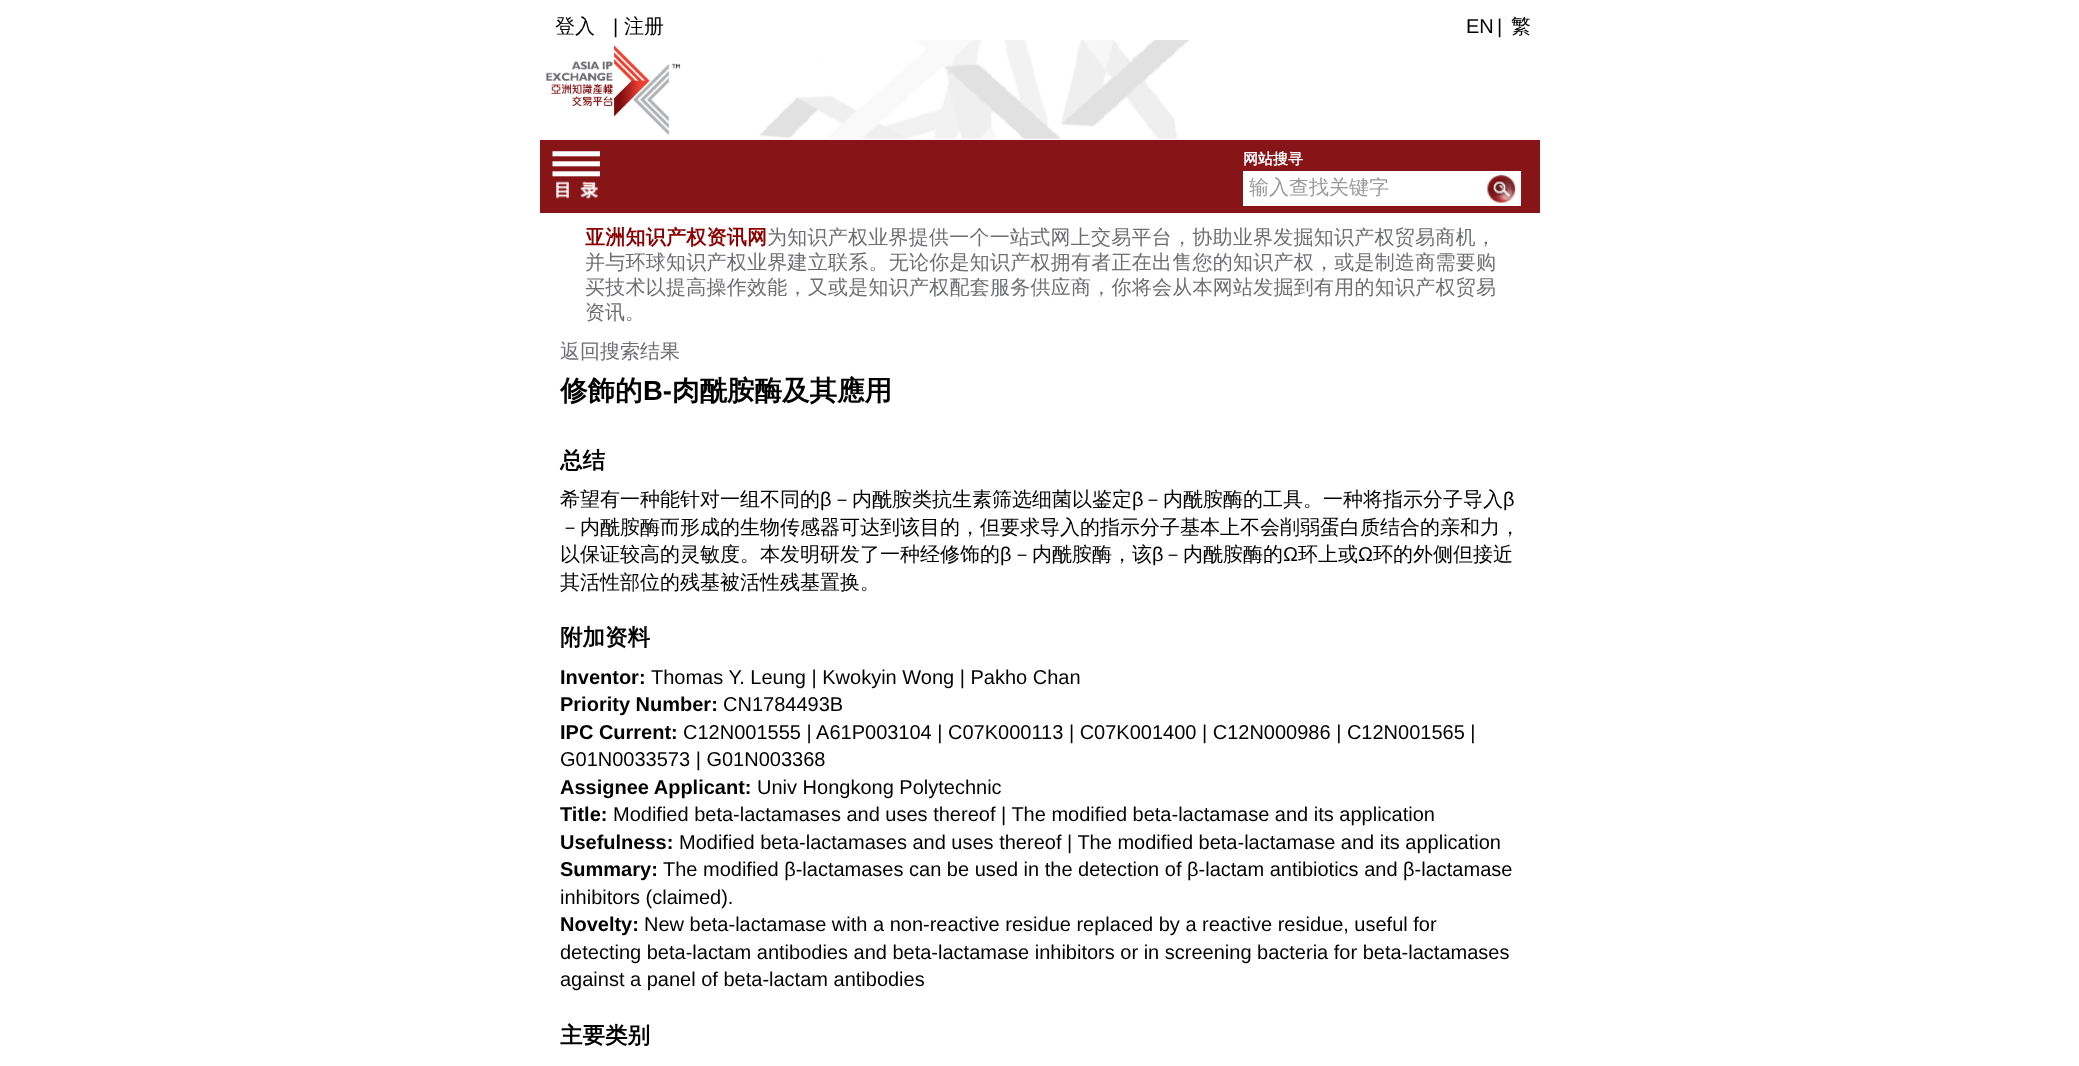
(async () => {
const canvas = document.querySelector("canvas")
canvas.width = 2079
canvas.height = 1066
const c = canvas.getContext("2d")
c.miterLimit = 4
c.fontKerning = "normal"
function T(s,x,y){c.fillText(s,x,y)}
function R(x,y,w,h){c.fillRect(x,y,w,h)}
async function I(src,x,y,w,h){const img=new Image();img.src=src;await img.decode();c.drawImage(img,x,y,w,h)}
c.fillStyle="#fff"
R(0,0,2079,1066)
c.font="500 20px WenQuanYi Zen Hei"
c.fillStyle="#000"
T("登入",555,33)
c.font="20px Liberation Sans"
T("|",613,33)
c.font="500 20px WenQuanYi Zen Hei"
T("注册",624,33)
c.font="20px Liberation Sans"
T("EN",1466,33)
T("|",1497,33)
c.font="500 20px WenQuanYi Zen Hei"
T("繁",1511,33)
await I("1.png",759,40,430,99)
await I("2.png",545,45,136,90)
c.fillStyle="#871417"
R(540,140,1000,73)
await I("3.png",552,151,48,48)
c.font="bold 15px WenQuanYi Zen Hei"
c.fillStyle="#fff"
T("网站搜寻",1243,164)
R(1243,171,278,35)
c.font="500 20px WenQuanYi Zen Hei"
c.fillStyle="#999"
T("输入查找关键字",1249,194)
await I("4.png",1487,174,29,29)
c.letterSpacing="0.25px"
c.font="bold 20px WenQuanYi Zen Hei"
c.fillStyle="#8b0000"
T("亚洲知识产权资讯网",585,244)
c.font="500 20px WenQuanYi Zen Hei"
c.fillStyle="#6d6e71"
T("为知识产权业界提供一个一站式网上交易平台，协助业界发掘知识产权贸易商机，",767,244)
T("并与环球知识产权业界建立联系。无论你是知识产权拥有者正在出售您的知识产权，或是制造商需要购",585,269)
T("买技术以提高操作效能，又或是知识产权配套服务供应商，你将会从本网站发掘到有用的知识产权贸易",585,294)
c.letterSpacing="0px"
T("资讯。",585,319)
T("返回搜索结果",560,358)
c.font="bold 27.5px WenQuanYi Zen Hei"
c.fillStyle="#000"
T("修飾的",560,400)
c.font="bold 27.5px Liberation Sans"
T("B-",643,400)
c.font="bold 27.5px WenQuanYi Zen Hei"
T("肉酰胺酶及其應用",672,400)
c.font="bold 22.5px WenQuanYi Zen Hei"
T("总结",560,468)
c.font="500 20px WenQuanYi Zen Hei"
T("希望有一种能针对一组不同的",560,506)
c.font="20px Liberation Sans"
T("β",820,506)
c.font="500 20px WenQuanYi Zen Hei"
T("－内酰胺类抗生素筛选细菌以鉴定",832,506)
c.font="20px Liberation Sans"
T("β",1132,506)
c.font="500 20px WenQuanYi Zen Hei"
T("－内酰胺酶的工具。一种将指示分子导入",1143,506)
c.font="20px Liberation Sans"
T("β",1503,506)
c.font="500 20px WenQuanYi Zen Hei"
T("－内酰胺酶而形成的生物传感器可达到该目的，但要求导入的指示分子基本上不会削弱蛋白质结合的亲和力，",560,534)
T("以保证较高的灵敏度。本发明研发了一种经修饰的",560,561)
c.font="20px Liberation Sans"
T("β",1000,561)
c.font="500 20px WenQuanYi Zen Hei"
T("－内酰胺酶，该",1012,561)
c.font="20px Liberation Sans"
T("β",1152,561)
c.font="500 20px WenQuanYi Zen Hei"
T("－内酰胺酶的",1163,561)
c.font="20px Liberation Sans"
T("Ω",1283,561)
c.font="500 20px WenQuanYi Zen Hei"
T("环上或",1298,561)
c.font="20px Liberation Sans"
T("Ω",1358,561)
c.font="500 20px WenQuanYi Zen Hei"
T("环的外侧但接近",1373,561)
T("其活性部位的残基被活性残基置换。",560,589)
c.font="bold 22.5px WenQuanYi Zen Hei"
T("附加资料",560,645)
c.font="bold 20px Liberation Sans"
T("Inventor:",560,684)
c.font="20px Liberation Sans"
T("Thomas Y. Leung | Kwokyin Wong | Pakho Chan",651,684)
c.font="bold 20px Liberation Sans"
T("Priority Number:",560,711)
c.font="20px Liberation Sans"
T("CN1784493B",723,711)
c.font="bold 20px Liberation Sans"
T("IPC Current:",560,739)
c.font="20px Liberation Sans"
T("C12N001555 | A61P003104 | C07K000113 | C07K001400 | C12N000986 | C12N001565 |",683,739)
T("G01N0033573 | G01N003368",560,766)
c.font="bold 20px Liberation Sans"
T("Assignee Applicant:",560,794)
c.font="20px Liberation Sans"
T("Univ Hongkong Polytechnic",757,794)
c.font="bold 20px Liberation Sans"
T("Title:",560,821)
c.font="20px Liberation Sans"
T("Modified beta-lactamases and uses thereof | The modified beta-lactamase and its application",613,821)
c.font="bold 20px Liberation Sans"
T("Usefulness:",560,849)
c.font="20px Liberation Sans"
T("Modified beta-lactamases and uses thereof | The modified beta-lactamase and its application",679,849)
c.font="bold 20px Liberation Sans"
T("Summary:",560,876)
c.font="20px Liberation Sans"
T("The modified β-lactamases can be used in the detection of β-lactam antibiotics and β-lactamase",663,876)
T("inhibitors (claimed).",560,904)
c.font="bold 20px Liberation Sans"
T("Novelty:",560,931)
c.font="20px Liberation Sans"
T("New beta-lactamase with a non-reactive residue replaced by a reactive residue, useful for",644,931)
T("detecting beta-lactam antibodies and beta-lactamase inhibitors or in screening bacteria for beta-lactamases",560,959)
T("against a panel of beta-lactam antibodies",560,986)
c.font="bold 22.5px WenQuanYi Zen Hei"
T("主要类别",560,1043)
})()
